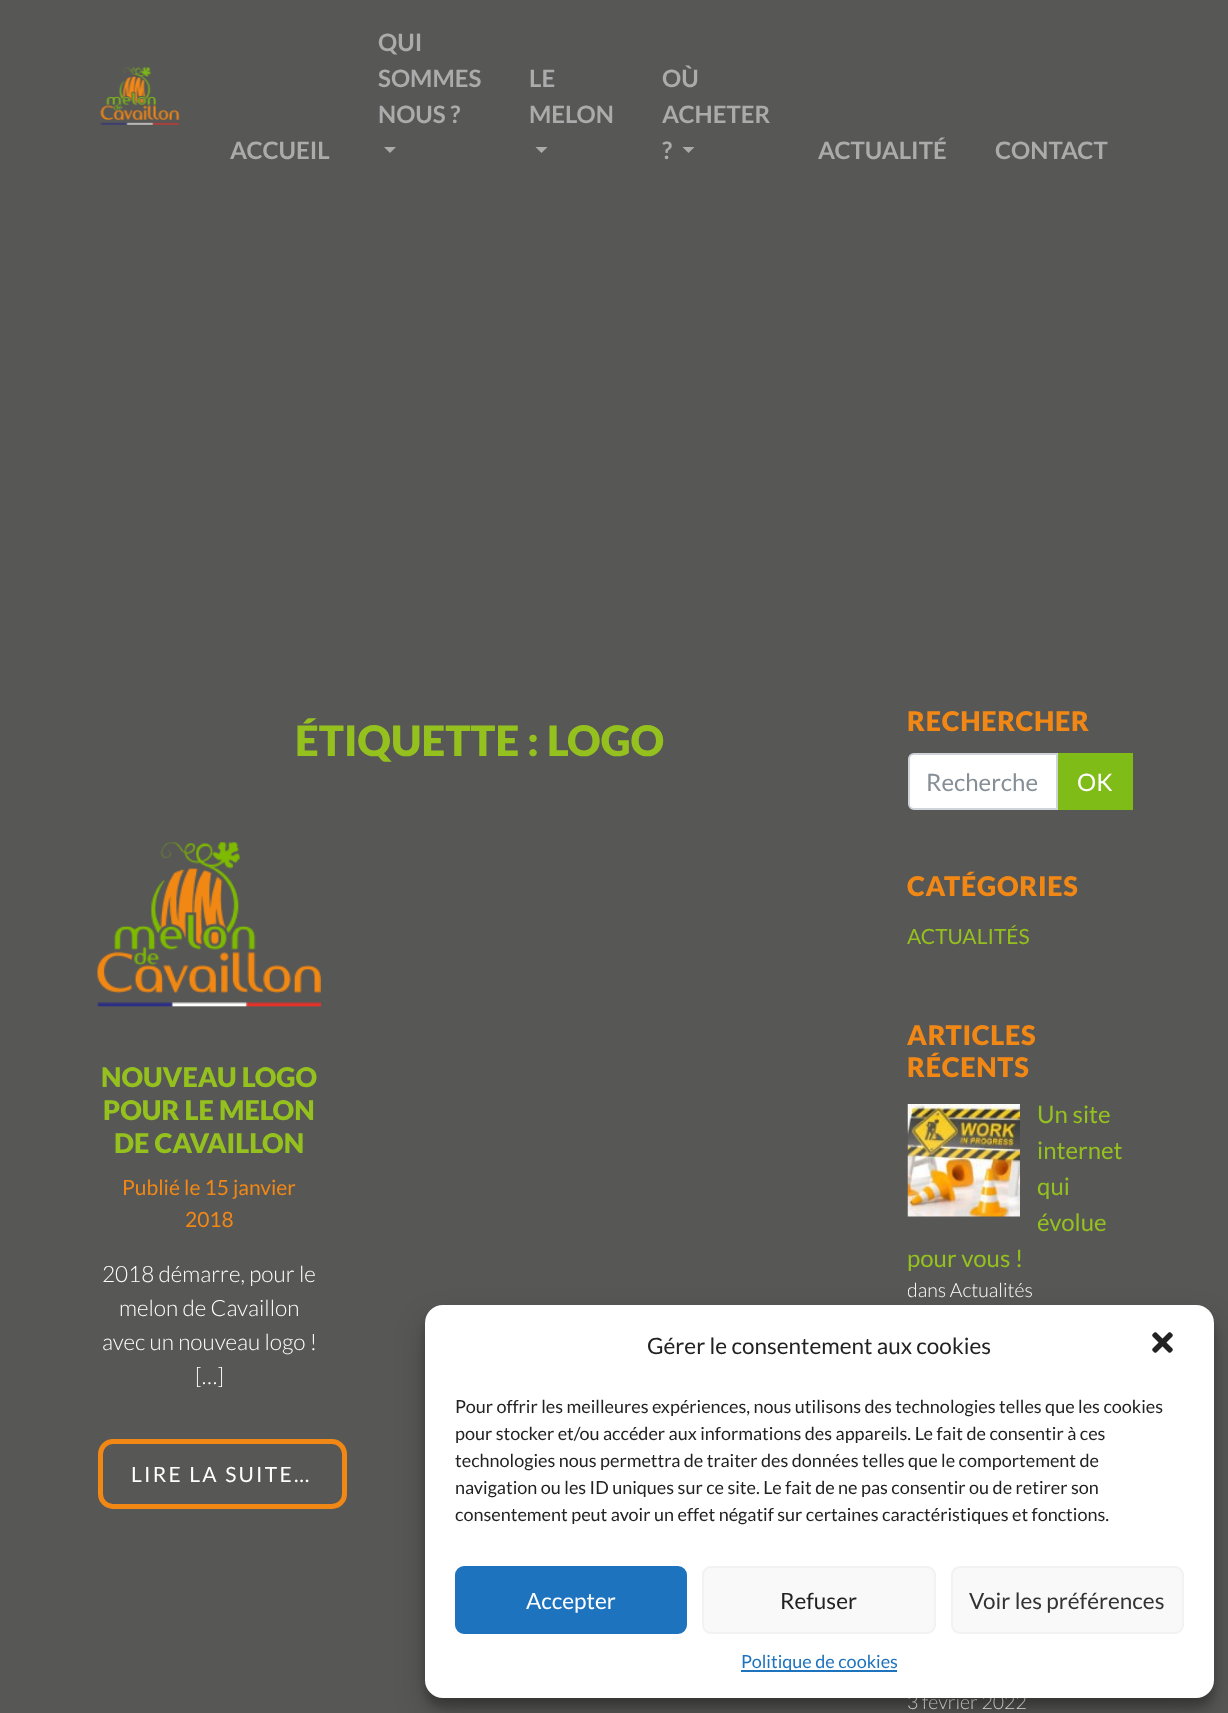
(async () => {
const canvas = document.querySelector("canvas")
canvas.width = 1228
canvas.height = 1713
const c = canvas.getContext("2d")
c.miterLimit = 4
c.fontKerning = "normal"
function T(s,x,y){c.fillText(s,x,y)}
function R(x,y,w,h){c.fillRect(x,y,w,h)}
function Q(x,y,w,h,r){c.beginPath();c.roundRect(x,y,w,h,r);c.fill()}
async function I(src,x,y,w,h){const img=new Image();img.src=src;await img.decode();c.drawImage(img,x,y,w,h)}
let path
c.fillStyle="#575756"
R(0,0,1228,1713)
await I("1.png",100,67,80,58)
c.font="bold 24px Lato"
c.fillStyle="#ababab"
T("QUI",378,51)
T("SOMMES",378,87)
T("NOUS ?",378,123)
path = new Path2D("M384 147h12l-6 6z")
c.fill(path)
T("LE",529,87)
T("MELON",529,123)
path = new Path2D("M535.5 147h12l-6 6z")
c.fill(path)
T("OÙ",662,87)
T("ACHETER",662,123)
T("?",662,159)
path = new Path2D("M682.5 147h12l-6 6z")
c.fill(path)
T("ACCUEIL",230,159)
T("ACTUALITÉ",818,159)
T("CONTACT",995,159)
c.font="900 42px Lato"
c.fillStyle="#95c11f"
T("ÉTIQUETTE : LOGO",295,756)
await I("2.png",97,842,224,165)
c.font="900 27px Lato"
T("NOUVEAU LOGO",101,1087)
T("POUR LE MELON",103,1120)
T("DE CAVAILLON",114,1153)
c.font="21px Lato"
c.fillStyle="#f18815"
T("Publié le 15 janvier",122,1195)
T("2018",185,1227)
c.font="300 22.5px Lato"
c.fillStyle="#fff"
T("2018 démarre, pour le",102,1282)
T("melon de Cavaillon",119,1316)
T("avec un nouveau logo !",102,1350)
T("[…]",195,1384)
c.beginPath()
c.roundRect(100.5,1441.5,244,65,12.5)
c.strokeStyle="#f18815"
c.lineWidth=5
c.stroke()
c.letterSpacing="2.25px"
c.font="21px Lato"
T("LIRE LA SUITE…",131,1482)
c.letterSpacing="0.75px"
c.font="900 27px Lato"
c.fillStyle="#f18815"
T("RECHERCHER",907,731)
c.fillStyle="#fff"
c.beginPath()
c.roundRect(909,754,148,55,[5,0,0,5])
c.fill()
c.strokeStyle="#ced4da"
c.lineWidth=2
c.stroke()
c.letterSpacing="0px"
c.font="24px Lato"
c.fillStyle="#868e96"
T("Recherche",926,791)
c.fillStyle="#7fbc17"
R(1058,753,75,57)
c.fillStyle="#fff"
T("OK",1077,791)
c.letterSpacing="0.75px"
c.font="900 27px Lato"
c.fillStyle="#f18815"
T("CATÉGORIES",907,896)
c.letterSpacing="0px"
c.font="21px Lato"
c.fillStyle="#95c11f"
T("ACTUALITÉS",907,944)
c.letterSpacing="0.75px"
c.font="900 27px Lato"
c.fillStyle="#f18815"
T("ARTICLES",907,1045)
T("RÉCENTS",907,1077)
await I("3.png",907,1104,113,113)
c.letterSpacing="0px"
c.font="24px Lato"
c.fillStyle="#95c11f"
T("Un site",1037,1123)
T("internet",1037,1159)
T("qui",1037,1195)
T("évolue",1037,1231)
T("pour vous !",907,1267)
c.save()
c.beginPath()
c.rect(908,1097,225,238)
c.clip()
c.font="300 19.5px Lato"
c.fillStyle="#fff"
T("dans Actualités",907,1297)
c.restore()
c.font="300 19.5px Lato"
c.fillStyle="#fff"
T("3 février 2022",907,1709)
c.fillStyle="#0000003b"
c.filter="blur(4.5px)"
c.beginPath()
c.roundRect(425,1314,789,393,18)
c.fill()
c.filter="none"
c.fillStyle="#00000030"
c.filter="blur(15px)"
c.beginPath()
c.roundRect(425,1320,789,393,18)
c.fill()
c.filter="none"
c.fillStyle="#fff"
Q(425,1305,789,393,18)
c.font="22.5px Lato"
c.fillStyle="#222"
T("Gérer le consentement aux cookies",647,1354)
await I("4.png",1152,1332,21,21)
c.font="18px Lato"
T("Pour offrir les meilleures expériences, nous utilisons des technologies telles que les cookies",455,1413)
T("pour stocker et/ou accéder aux informations des appareils. Le fait de consentir à ces",455,1440)
T("technologies nous permettra de traiter des données telles que le comportement de",455,1467)
T("navigation ou les ID uniques sur ce site. Le fait de ne pas consentir ou de retirer son",455,1494)
T("consentement peut avoir un effet négatif sur certaines caractéristiques et fonctions.",455,1521)
c.fillStyle="#1e73be"
c.beginPath()
c.roundRect(456,1567,230,66,8)
c.fill()
c.strokeStyle="#1e73be"
c.stroke()
c.font="22.5px Lato"
c.fillStyle="#fff"
T("Accepter",526,1609)
c.fillStyle="#f9f9f9"
c.beginPath()
c.roundRect(703,1567,232,66,8)
c.fill()
c.strokeStyle="#f2f2f2"
c.stroke()
c.fillStyle="#222"
T("Refuser",780,1609)
c.fillStyle="#f9f9f9"
c.beginPath()
c.roundRect(952,1567,231,66,8)
c.fill()
c.stroke()
c.fillStyle="#333"
T("Voir les préférences",969,1609)
c.fillStyle="#1e73be"
R(741,1670,156,2)
c.font="18px Lato"
T("Politique de cookies",741,1668)
})()
